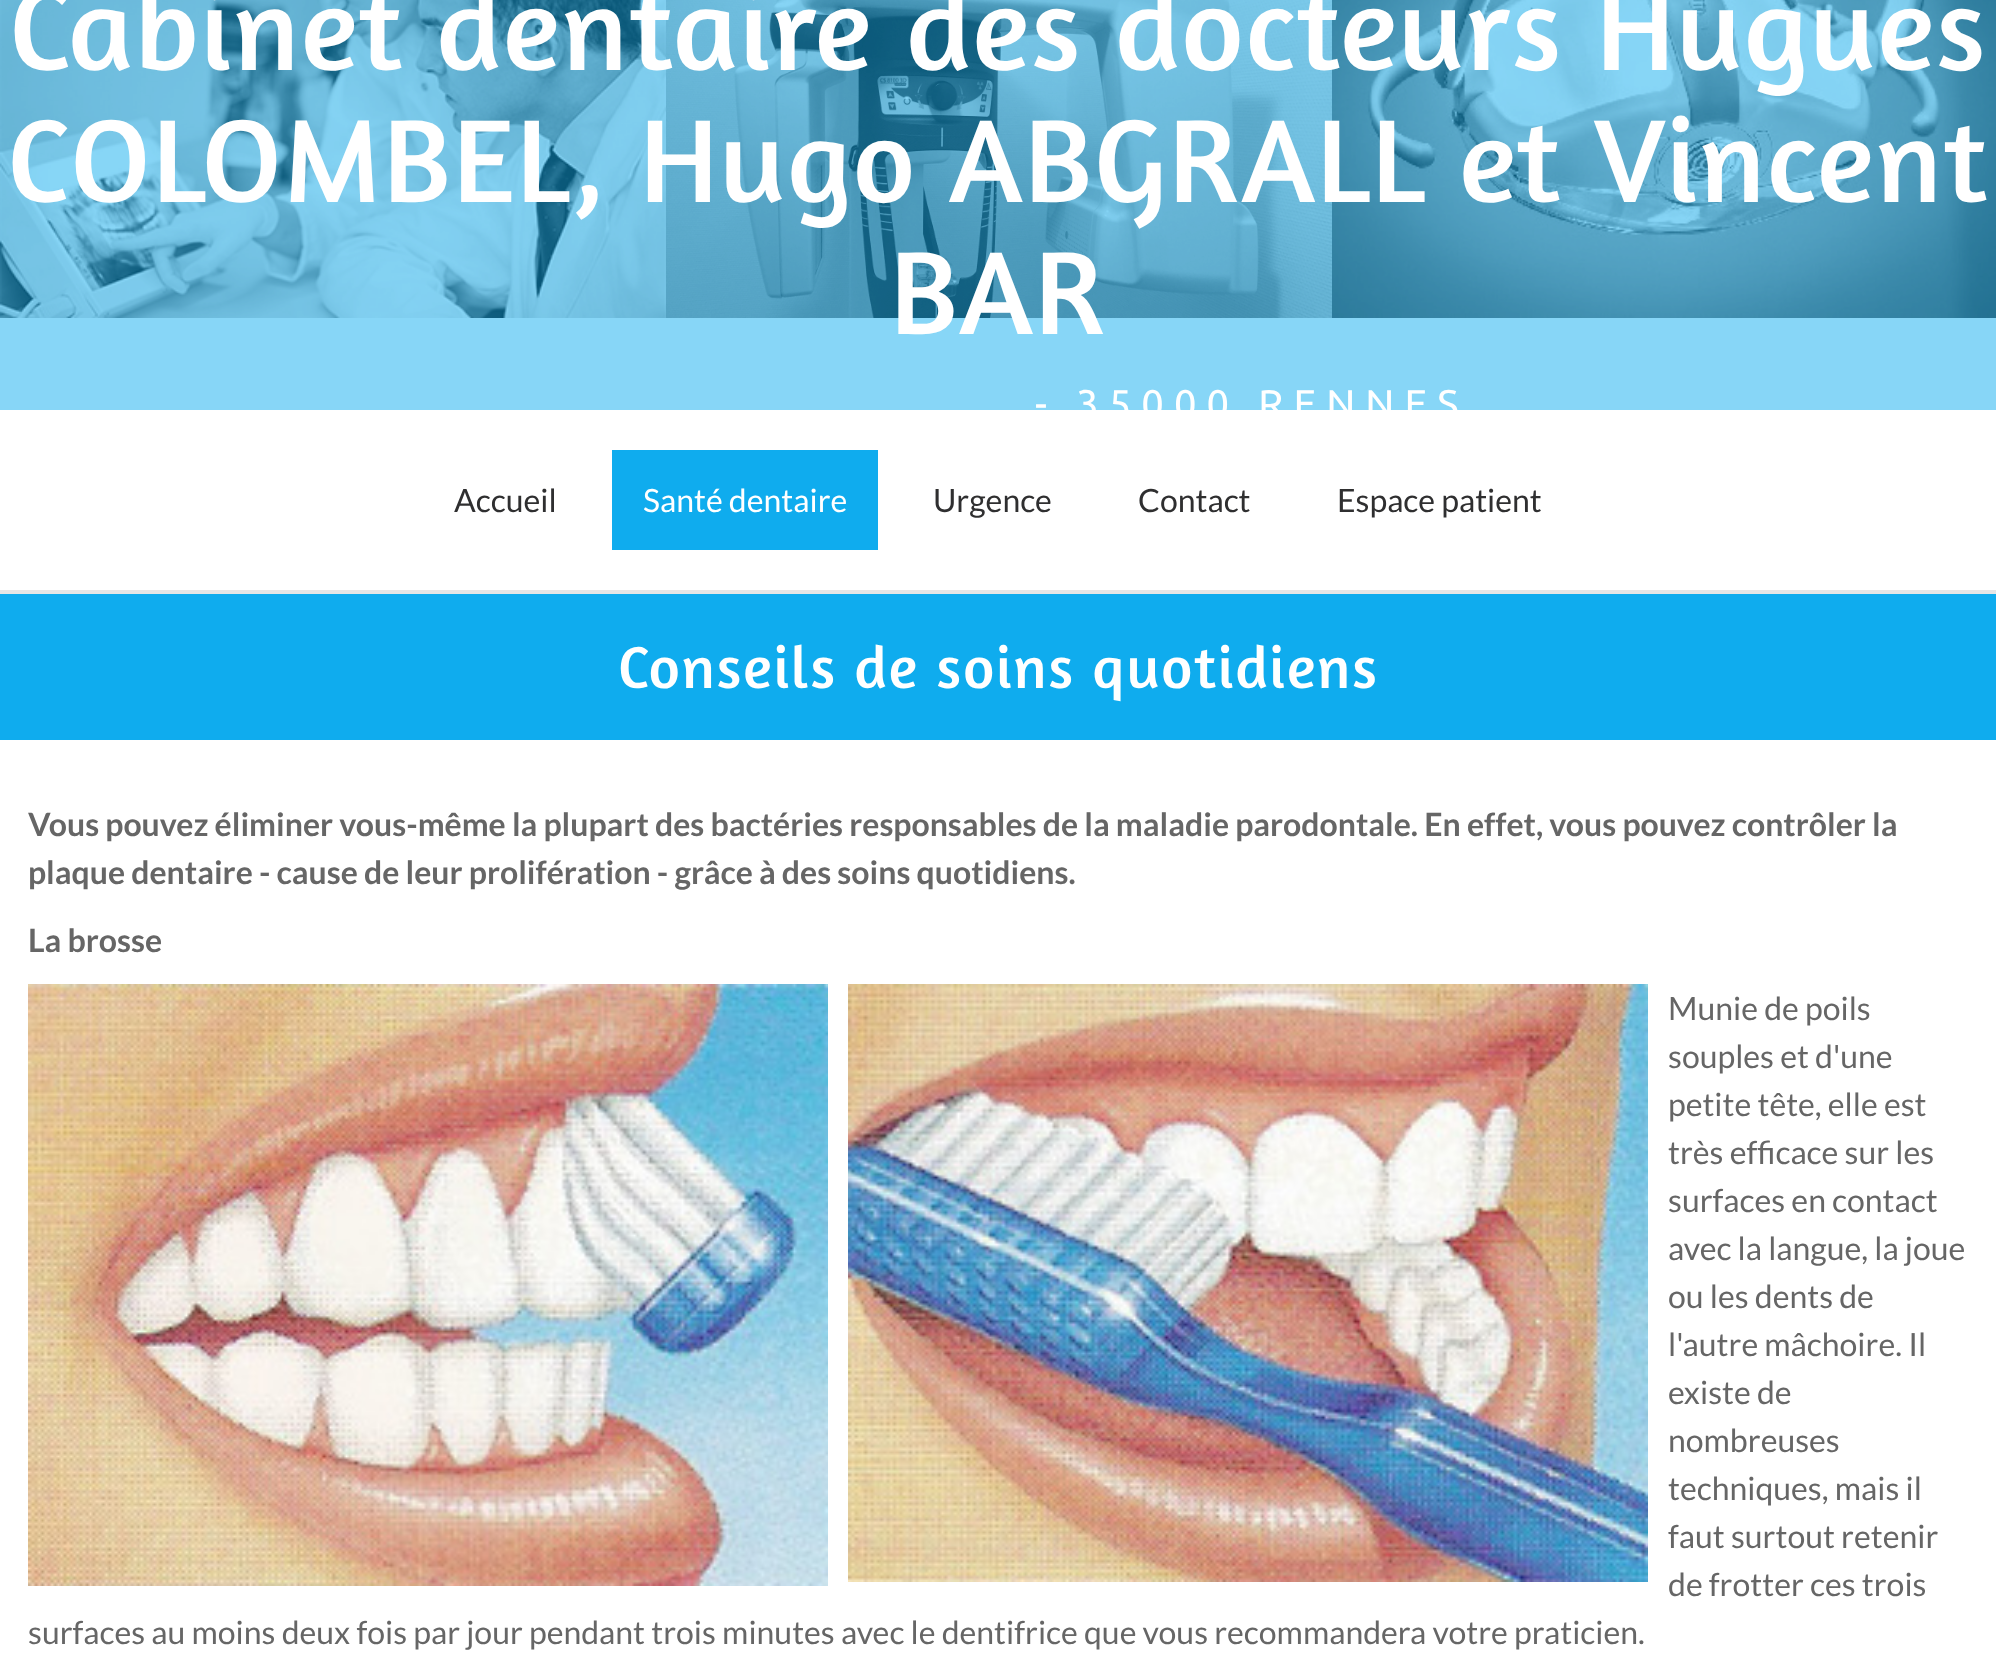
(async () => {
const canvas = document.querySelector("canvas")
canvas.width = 1996
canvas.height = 1680
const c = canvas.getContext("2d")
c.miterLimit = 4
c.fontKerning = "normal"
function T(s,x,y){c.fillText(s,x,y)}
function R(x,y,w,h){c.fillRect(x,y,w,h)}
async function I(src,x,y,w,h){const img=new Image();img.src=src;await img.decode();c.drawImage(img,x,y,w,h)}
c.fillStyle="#fff"
R(0,0,1996,1680)
c.fillStyle="#87d6f7"
R(0,0,1996,410)
await I("1.png",0,0,666,318)
await I("2.png",666,0,666,318)
await I("3.png",1332,0,664,318)
c.letterSpacing="2px"
c.font="120px Amaranth"
c.fillStyle="#fff"
T("Cabinet dentaire des docteurs Hugues",9,70)
T("COLOMBEL, Hugo ABGRALL et Vincent",7,202)
T("BAR",890,334)
c.letterSpacing="10px"
c.font="40px Ubuntu"
T("- 35000 RENNES",1035,418)
c.fillStyle="#e6e6e6"
R(0,590,1996,4)
c.letterSpacing="0px"
c.font="32px Lato"
c.fillStyle="#2f2f30"
T("Accueil",454,512)
c.fillStyle="#0facee"
R(612,450,266,100)
c.fillStyle="#fff"
T("Santé dentaire",643,512)
c.fillStyle="#2f2f30"
T("Urgence",933,512)
T("Contact",1138,512)
T("Espace patient",1337,512)
c.fillStyle="#0facee"
R(0,594,1996,146)
c.letterSpacing="2px"
c.font="60px Amaranth"
c.fillStyle="#fff"
T("Conseils de soins quotidiens",618,688)
c.letterSpacing="0px"
c.font="bold 32px Lato"
c.fillStyle="#666"
T("Vous pouvez éliminer vous-même la plupart des bactéries responsables de la maladie parodontale. En effet, vous pouvez contrôler la",28,836)
T("plaque dentaire - cause de leur prolifération - grâce à des soins quotidiens.",28,884)
T("La brosse",28,952)
await I("4.png",28,984,800,602)
await I("5.png",848,984,800,598)
c.font="32px Lato"
T("Munie de poils",1668,1020)
T("souples et d'une",1668,1068)
T("petite tête, elle est",1668,1116)
T("très efficace sur les",1668,1164)
T("surfaces en contact",1668,1212)
T("avec la langue, la joue",1668,1260)
T("ou les dents de",1668,1308)
T("l'autre mâchoire. Il",1668,1356)
T("existe de",1668,1404)
T("nombreuses",1668,1452)
T("techniques, mais il",1668,1500)
T("faut surtout retenir",1668,1548)
T("de frotter ces trois",1668,1596)
T("surfaces au moins deux fois par jour pendant trois minutes avec le dentifrice que vous recommandera votre praticien.",28,1644)
})()
